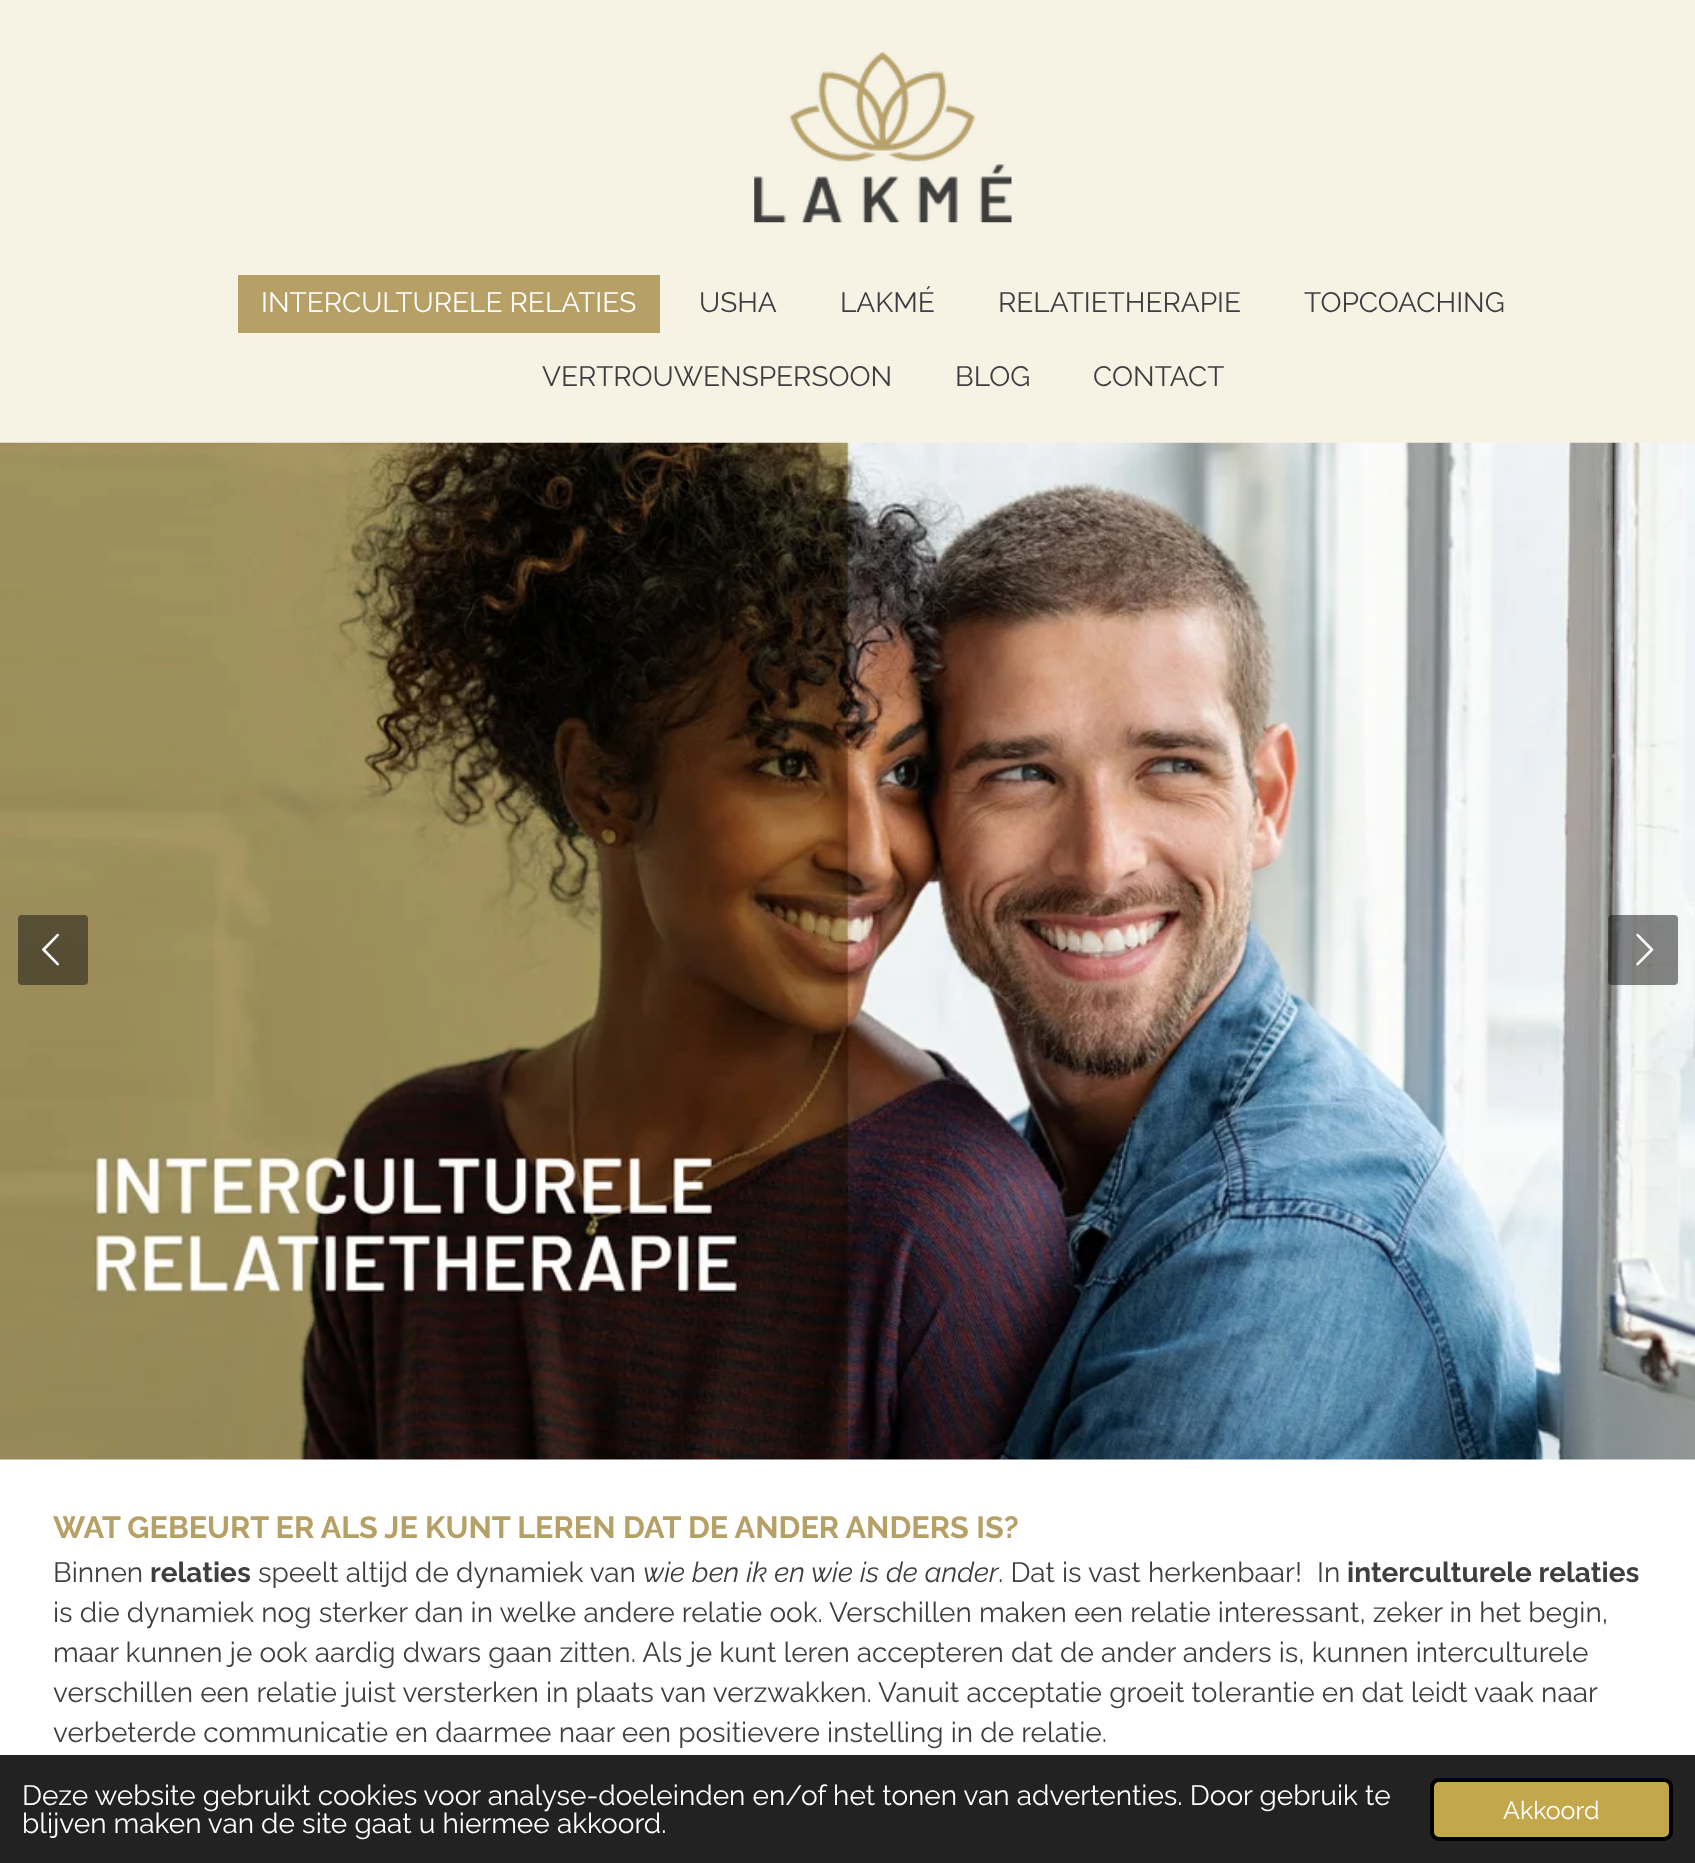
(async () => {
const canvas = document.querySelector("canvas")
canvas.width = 1695
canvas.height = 1863
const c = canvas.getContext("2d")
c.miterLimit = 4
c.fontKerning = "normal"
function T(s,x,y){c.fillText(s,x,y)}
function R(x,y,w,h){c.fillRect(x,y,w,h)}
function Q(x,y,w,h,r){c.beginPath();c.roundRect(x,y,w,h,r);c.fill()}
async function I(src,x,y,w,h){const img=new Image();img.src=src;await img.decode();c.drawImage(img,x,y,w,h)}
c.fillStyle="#fff"
R(0,0,1695,1863)
c.fillStyle="#f6f2e4"
R(0,0,1695,443)
await I("1.png",754,52,258,171)
c.fillStyle="#b6a066"
R(238,275,422,58)
c.font="28px Raleway"
c.fillStyle="#fff"
T("INTERCULTURELE RELATIES",261,312)
c.fillStyle="#3e3d40"
T("USHA",699,312)
T("LAKMÉ",840,312)
T("RELATIETHERAPIE",998,312)
T("TOPCOACHING",1304,312)
T("VERTROUWENSPERSOON",542,386)
T("BLOG",955,386)
T("CONTACT",1093,386)
await I("2.png",0,442,1695,1018)
c.fillStyle="#0f0f0f80"
Q(18,915,70,70,4)
await I("3.png",42,933,18,33)
Q(1608,915,70,70,4)
await I("4.png",1636,933,18,33)
c.font="bold 30.6px Raleway"
c.fillStyle="#b6a066"
T("WAT GEBEURT ER ALS JE KUNT LEREN DAT DE ANDER ANDERS IS?",53,1538)
c.font="28px Raleway"
c.fillStyle="#3e3d40"
T("Binnen",53,1582)
c.font="bold 28px Raleway"
T("relaties",150,1582)
c.font="28px Raleway"
T("speelt altijd de dynamiek van",258,1582)
c.font="italic 28px Raleway"
T("wie ben ik en wie is de ander",643,1582)
c.font="28px Raleway"
T(". Dat is vast herkenbaar!",998,1582)
T("In",1317,1582)
c.font="bold 28px Raleway"
T("interculturele relaties",1347,1582)
c.font="28px Raleway"
T("is die dynamiek nog sterker dan in welke andere relatie ook. Verschillen maken een relatie interessant, zeker in het begin,",53,1622)
T("maar kunnen je ook aardig dwars gaan zitten. Als je kunt leren accepteren dat de ander anders is, kunnen interculturele",53,1662)
T("verschillen een relatie juist versterken in plaats van verzwakken. Vanuit acceptatie groeit tolerantie en dat leidt vaak naar",53,1702)
T("verbeterde communicatie en daarmee naar een positievere instelling in de relatie.",53,1742)
c.fillStyle="#222"
R(0,1755,1695,108)
c.fillStyle="#fff"
T("Deze website gebruikt cookies voor analyse-doeleinden en/of het tonen van advertenties. Door gebruik te",22,1805)
T("blijven maken van de site gaat u hiermee akkoord.",22,1833)
c.fillStyle="#c3a84b"
c.beginPath()
c.roundRect(1432,1780,239,59,7)
c.fill()
c.strokeStyle="#000"
c.lineWidth=4
c.stroke()
c.font="25px Raleway"
c.fillStyle="#fff"
T("Akkoord",1503,1819)
})()
